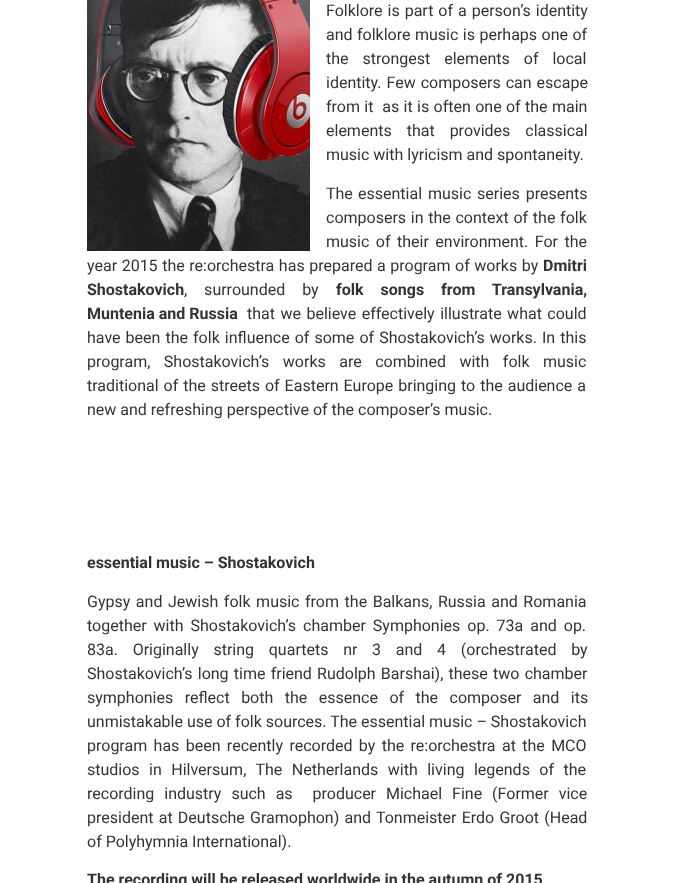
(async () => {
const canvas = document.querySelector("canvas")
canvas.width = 674
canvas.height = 883
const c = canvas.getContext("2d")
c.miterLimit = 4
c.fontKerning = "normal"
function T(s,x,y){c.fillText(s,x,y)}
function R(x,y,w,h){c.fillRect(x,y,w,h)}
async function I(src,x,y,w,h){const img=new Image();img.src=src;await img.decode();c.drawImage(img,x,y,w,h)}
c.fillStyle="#fff"
R(0,0,674,883)
await I("1.png",87,0,223,251)
c.wordSpacing="1px"
c.font="16px Roboto"
c.fillStyle="#333"
T("Folklore is part of a person’s identity",326,16)
c.wordSpacing="0.5px"
T("and folklore music is perhaps one of",326,40)
c.wordSpacing="10px"
T("the strongest elements of local",326,64)
c.wordSpacing="1px"
T("identity. Few composers can escape",326,88)
c.wordSpacing="0.4px"
T("from it  as it is often one of the main",326,112)
c.wordSpacing="11px"
T("elements that provides classical",326,136)
c.wordSpacing="0px"
T("music with lyricism and spontaneity.",326,160)
T("The",326,199)
c.wordSpacing="2px"
T("essential music",358,199)
T("series presents",477,199)
c.wordSpacing="0.75px"
T("composers in the context of the folk",326,223)
c.wordSpacing="2.5px"
T("music of their environment. For the",326,247)
c.wordSpacing="0.6px"
T("year 2015 the re:orchestra has prepared a program of works by",87,271)
c.wordSpacing="0px"
c.font="bold 16px Roboto"
T("Dmitri",543,271)
T("Shostakovich",87,295)
c.wordSpacing="13px"
c.font="16px Roboto"
T(", surrounded by",184,295)
c.font="bold 16px Roboto"
T("folk songs from Transylvania,",336,295)
c.wordSpacing="0px"
T("Muntenia and Russia",87,319)
c.wordSpacing="1.5px"
c.font="16px Roboto"
T("that we believe effectively illustrate what could",247,319)
c.wordSpacing="1.1px"
T("have been the folk influence of some of Shostakovich’s works. In this",87,343)
c.wordSpacing="9.5px"
T("program, Shostakovich’s works are combined with folk music",87,367)
c.wordSpacing="1px"
T("traditional of the streets of Eastern Europe bringing to the audience a",87,391)
c.wordSpacing="0px"
T("new and refreshing perspective of the composer’s music.",87,415)
c.font="bold 16px Roboto"
T("essential music – Shostakovich",87,568)
c.wordSpacing="1.6px"
c.font="16px Roboto"
T("Gypsy and Jewish folk music from the Balkans, Russia and Romania",87,607)
c.wordSpacing="3px"
T("together with Shostakovich’s chamber Symphonies op. 73a and op.",87,631)
c.wordSpacing="10.75px"
T("83a. Originally string quartets nr 3 and 4 (orchestrated by",87,655)
c.wordSpacing="1.25px"
T("Shostakovich’s long time friend Rudolph Barshai), these two chamber",87,679)
c.wordSpacing="7.5px"
T("symphonies reflect both the essence of the composer and its",87,703)
c.wordSpacing="0px"
T("unmistakable use of folk sources. The essential music – Shostakovich",87,727)
c.wordSpacing="2.4px"
T("program has been recently recorded by the re:orchestra at the MCO",87,751)
c.wordSpacing="5.5px"
T("studios in Hilversum, The Netherlands with living legends of the",87,775)
c.wordSpacing="6px"
T("recording industry such as  producer Michael Fine (Former vice",87,799)
c.wordSpacing="1.25px"
T("president at Deutsche Gramophon) and Tonmeister Erdo Groot (Head",87,823)
c.wordSpacing="0px"
T("of Polyhymnia International).",87,847)
c.font="bold 16px Roboto"
T("The recording will be released worldwide in the autumn of 2015",87,885)
})()
